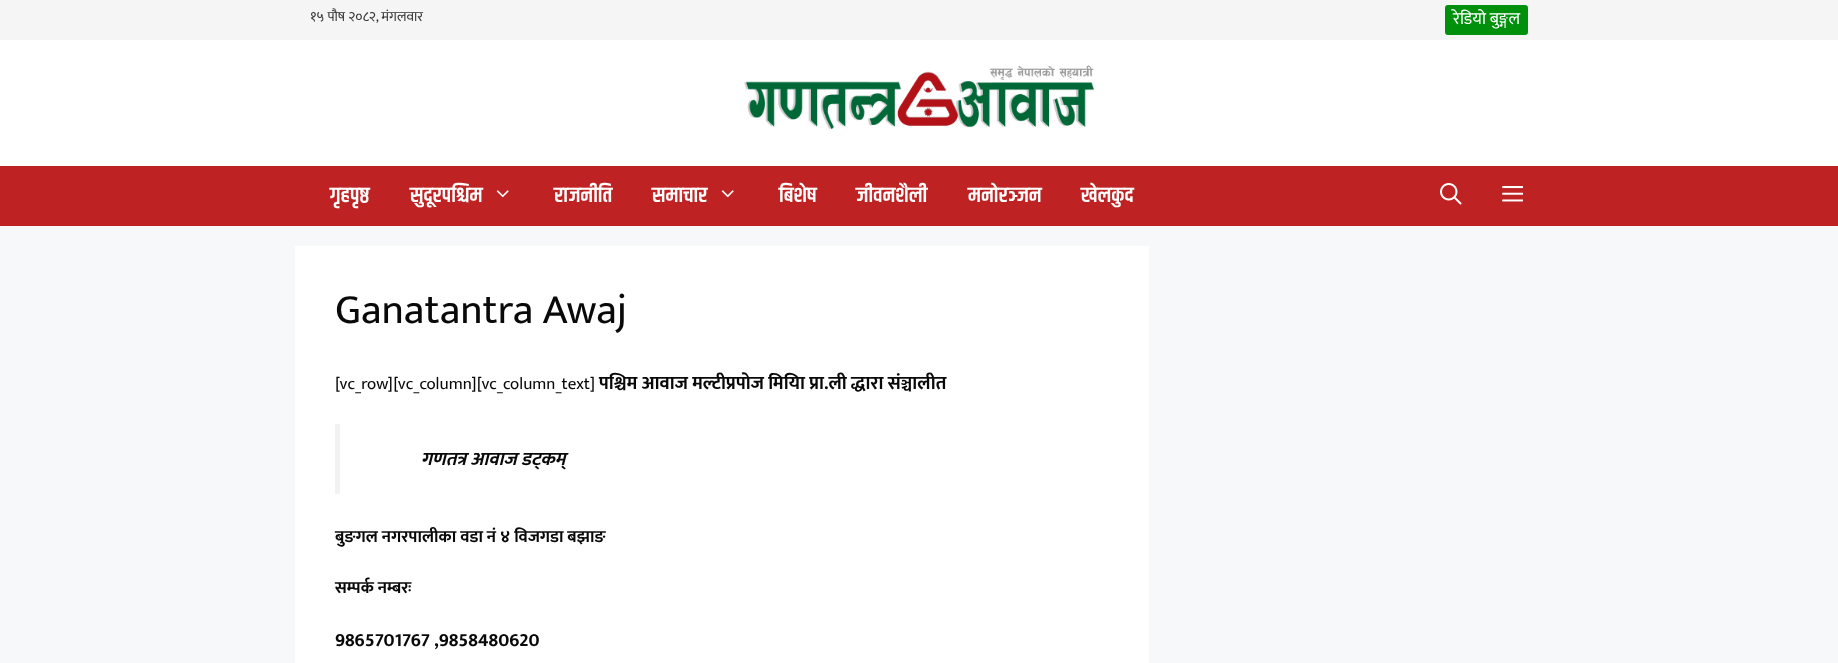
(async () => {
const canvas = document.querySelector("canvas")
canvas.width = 1838
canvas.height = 663
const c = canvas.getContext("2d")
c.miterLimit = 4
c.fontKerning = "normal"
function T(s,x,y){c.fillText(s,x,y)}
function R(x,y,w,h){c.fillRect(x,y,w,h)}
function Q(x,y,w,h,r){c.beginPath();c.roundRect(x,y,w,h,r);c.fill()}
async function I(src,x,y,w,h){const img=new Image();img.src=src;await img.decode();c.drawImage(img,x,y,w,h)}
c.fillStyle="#f7f8f9"
R(0,0,1838,663)
c.fillStyle="#f5f5f5"
R(0,0,1838,40)
await I("1.png",311,8,113,15)
c.fillStyle="#00900c"
Q(1445,5,83,30,3)
c.font="17px Mukta"
c.fillStyle="#fff"
T("रेडियाे बुङ्गल",1453,24)
R(0,40,1838,126)
await I("2.png",744,65,350,65)
c.fillStyle="#bf2222"
R(0,166,1838,60)
c.font="600 21.5px Khand"
c.fillStyle="#fff"
T("गृहपृष्ठ",330,202)
T("सुदूरपश्चिम",410,202)
await I("3.png",496,190,13,8)
T("राजनीति",554,202)
T("समाचार",652,202)
await I("3.png",721,190,13,8)
T("बिशेष",779,202)
T("जीवनशैली",856,202)
T("मनाेरञ्जन",968,202)
T("खेलकुद",1081,202)
await I("4.png",1440,183,22,22)
await I("5.png",1502,186,21,16)
R(295,246,854,417)
c.font="42px Mukta"
c.fillStyle="#090909"
T("Ganatantra Awaj",335,323)
c.font="17px Mukta"
T("[vc_row][vc_column][vc_column_text]",335,389)
c.font="bold 18.7px Mukta"
T("पश्चिम आवाज मल्टीप्रपोज मियिा प्रा.ली द्धारा संञ्चालीत",599,389)
c.fillStyle="#f2f2f2"
R(335,424,5,70)
c.font="italic bold 18.7px Mukta"
c.fillStyle="#090909"
T("गणतत्र आवाज डट्कम्",421,465)
c.font="bold 17px Mukta"
T("बुङगल नगरपालीका वडा नं ४ विजगडा बझाङ",335,542)
T("सम्पर्क नम्बरः",335,593)
c.font="bold 18.7px Mukta"
T("9865701767 ,9858480620",335,646)
})()
